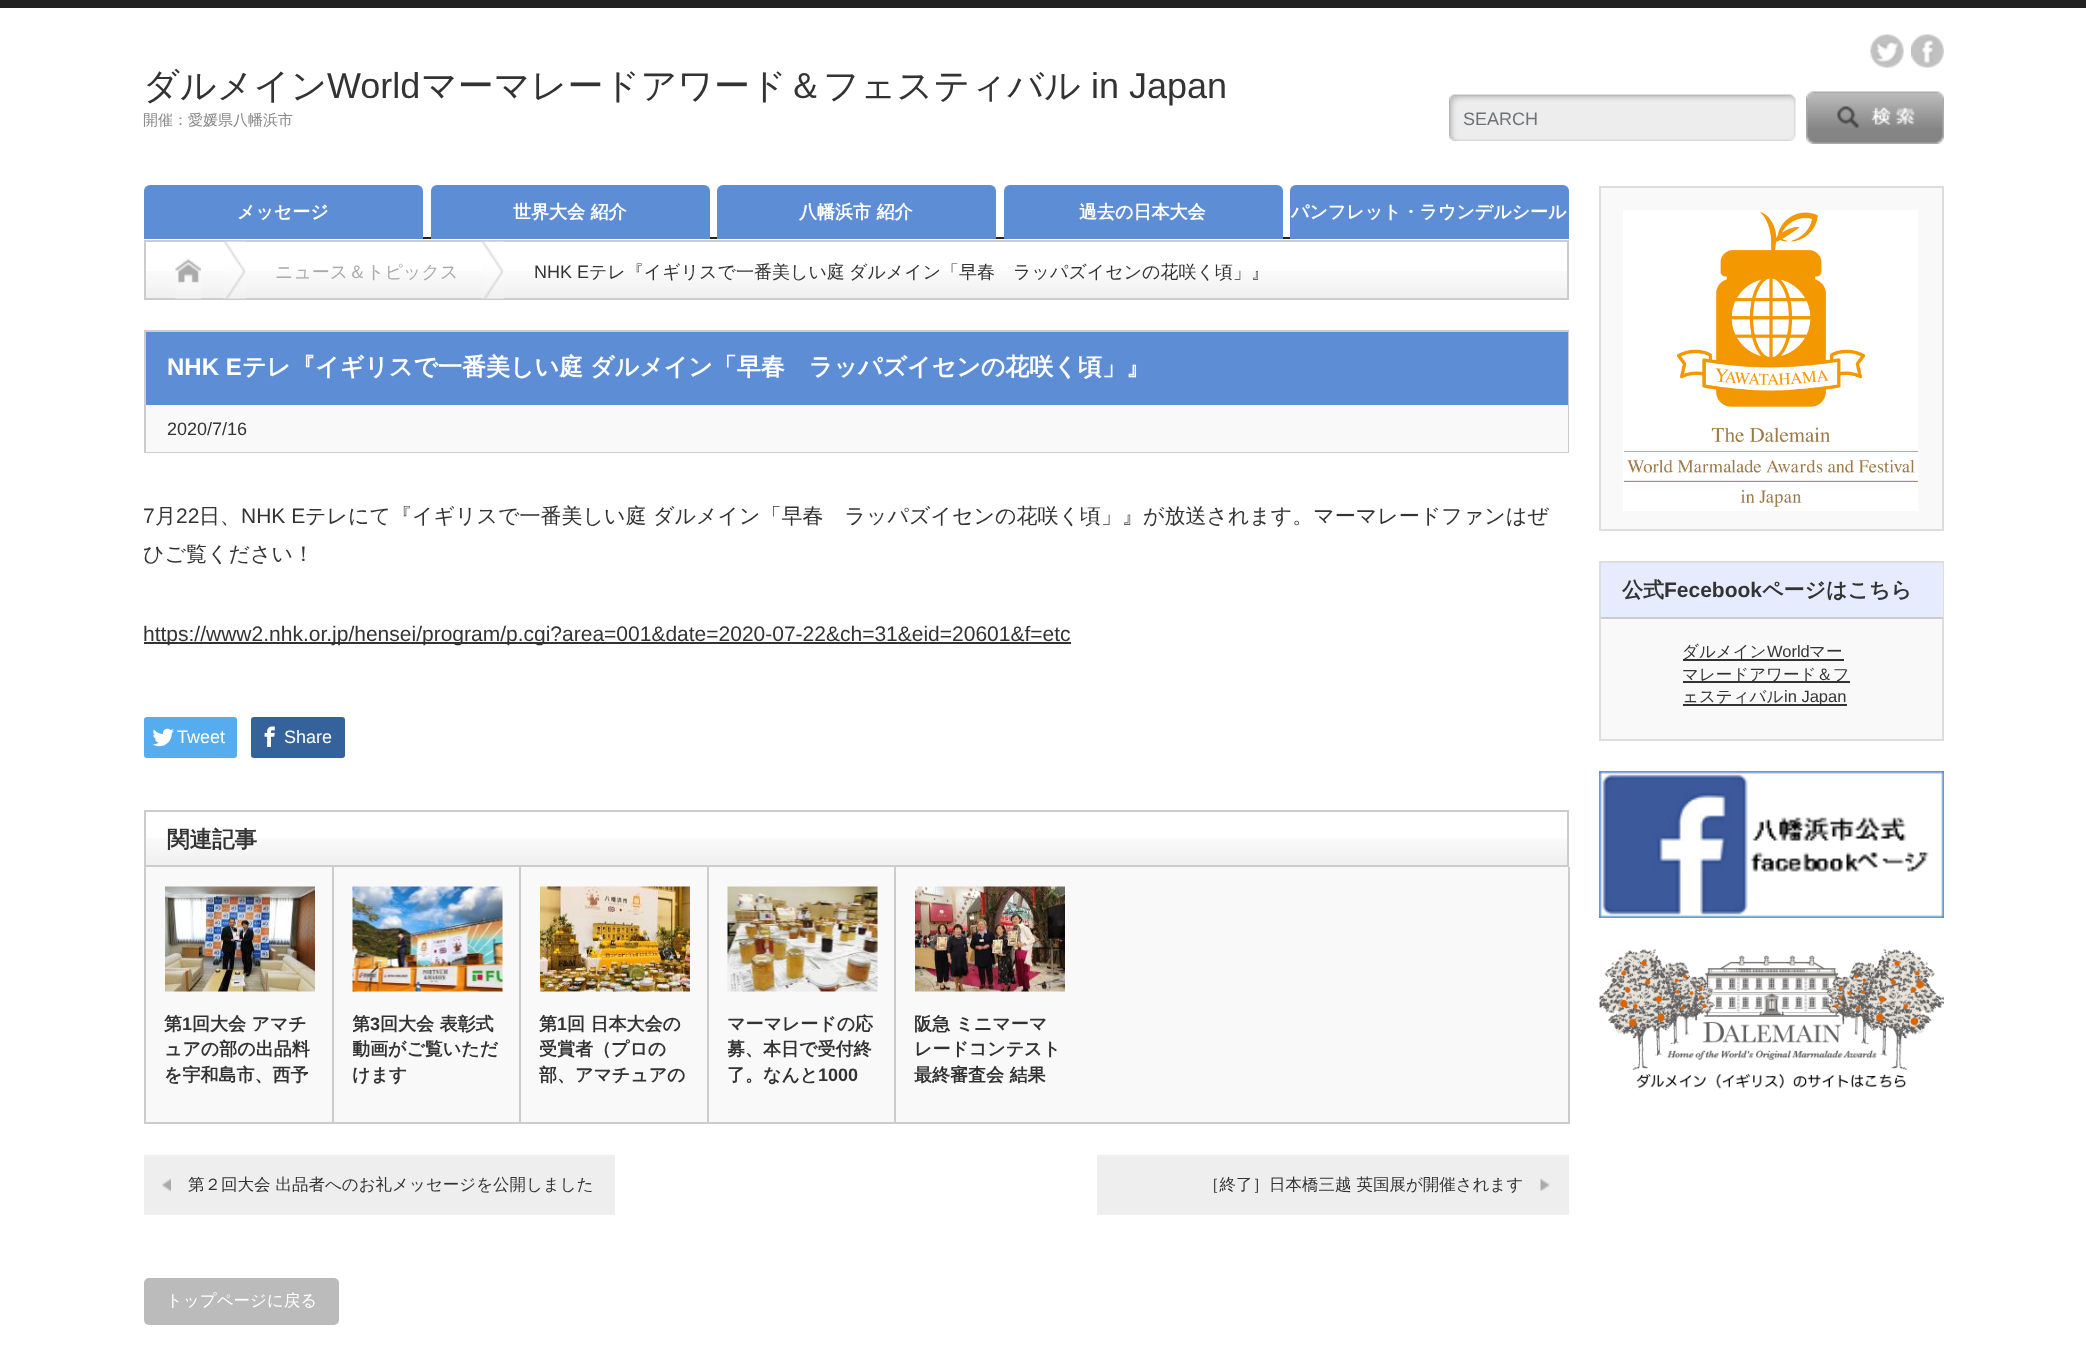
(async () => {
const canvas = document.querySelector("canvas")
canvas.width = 2086
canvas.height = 1366
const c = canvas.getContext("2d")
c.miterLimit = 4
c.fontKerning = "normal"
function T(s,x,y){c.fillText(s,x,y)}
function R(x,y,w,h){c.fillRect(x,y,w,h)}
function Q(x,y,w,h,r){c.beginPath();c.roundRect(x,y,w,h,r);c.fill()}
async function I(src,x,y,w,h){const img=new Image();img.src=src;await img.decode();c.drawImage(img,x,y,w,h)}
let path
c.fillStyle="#fff"
R(0,0,2086,1366)
c.fillStyle="#222"
R(0,0,2086,8)
await I("1.png",1870,34,34,34)
await I("2.png",1911,34,33,34)
c.font="500 36px WenQuanYi Zen Hei"
c.fillStyle="#333"
T("ダルメイン",143,98)
c.font="36px Liberation Sans"
T("World",327,98)
c.font="500 36px WenQuanYi Zen Hei"
T("マーマレードアワード＆フェスティバル",421,98)
c.font="36px Liberation Sans"
T("in Japan",1091,98)
c.font="500 15px WenQuanYi Zen Hei"
c.fillStyle="#888"
T("開催：愛媛県八幡浜市",143,125)
await I("3.png",1449,94,347,47)
c.font="18px Liberation Sans"
c.fillStyle="#6d7478"
T("SEARCH",1463,125)
await I("4.png",1806,91,138,53)
c.fillStyle="#222"
R(423,237,867,2)
c.fillStyle="#5d8dd4"
c.beginPath()
c.roundRect(144,185,279,54,[6,6,0,0])
c.fill()
c.font="bold 18px WenQuanYi Zen Hei"
c.fillStyle="#fff"
T("メッセージ",237,218)
c.fillStyle="#5d8dd4"
c.beginPath()
c.roundRect(431,185,279,54,[6,6,0,0])
c.fill()
c.fillStyle="#fff"
T("世界大会 紹介",513,218)
c.fillStyle="#5d8dd4"
c.beginPath()
c.roundRect(717,185,279,54,[6,6,0,0])
c.fill()
c.fillStyle="#fff"
T("八幡浜市 紹介",799,218)
c.fillStyle="#5d8dd4"
c.beginPath()
c.roundRect(1004,185,279,54,[6,6,0,0])
c.fill()
c.fillStyle="#fff"
T("過去の日本大会",1079,218)
c.fillStyle="#5d8dd4"
c.beginPath()
c.roundRect(1290,185,279,54,[6,6,0,0])
c.fill()
c.fillStyle="#fff"
T("パンフレット・ラウンデルシール",1291,218)
await I("5.png",146,271,1421,27)
c.strokeStyle="#ccc"
c.lineWidth=2
c.strokeRect(145,241,1423,58)
await I("6.png",223,241,23,58)
await I("7.png",175,259,26,40)
await I("6.png",481,241,23,58)
c.font="500 18px WenQuanYi Zen Hei"
c.fillStyle="#aaa"
T("ニュース＆トピックス",275,278)
c.font="18px Liberation Sans"
c.fillStyle="#333"
T("NHK E",534,278)
c.font="500 18px WenQuanYi Zen Hei"
T("テレ『イギリスで一番美しい庭",589,278)
T("ダルメイン「早春　ラッパズイセンの花咲く頃」』",849,278)
c.strokeRect(145,331,1423,121)
c.fillStyle="#5d8dd4"
R(146,332,1422,73)
c.font="bold 24px Liberation Sans"
c.fillStyle="#fff"
T("NHK E",167,375)
c.font="bold 24px WenQuanYi Zen Hei"
T("テレ『イギリスで一番美しい庭",242,375)
T("ダルメイン「早春　ラッパズイセンの花咲く頃」』",590,375)
c.fillStyle="#f9f9f9"
R(146,405,1422,47)
c.font="18px Liberation Sans"
c.fillStyle="#333"
T("2020/7/16",167,435)
c.font="21px Liberation Sans"
T("7",143,523)
c.font="500 21px WenQuanYi Zen Hei"
T("月",155,523)
c.font="21px Liberation Sans"
T("22",176,523)
c.font="500 21px WenQuanYi Zen Hei"
T("日、",199,523)
c.font="21px Liberation Sans"
T("NHK E",241,523)
c.font="500 21px WenQuanYi Zen Hei"
T("テレにて『イギリスで一番美しい庭",305,523)
T("ダルメイン「早春　ラッパズイセンの花咲く頃」』が放送されます。マーマレードファンはぜ",653,523)
T("ひご覧ください！",143,561)
R(144,642,927,2)
c.font="21px Liberation Sans"
T("https://www2.nhk.or.jp/hensei/program/p.cgi?area=001&date=2020-07-22&ch=31&eid=20601&f=etc",143,641)
c.fillStyle="#f7f7f7"
path = new Path2D("M144 754c0 9 12 5 18 5h58c5 0 17 4 17-5c0 2-1 4-3 4h-87c-2 0-3-2-3-4z")
c.fill(path)
c.fillStyle="#55acee"
Q(144,717,93,41,3)
await I("8.png",152,728,22,19)
c.font="18px Liberation Sans"
c.fillStyle="#fff"
T("Tweet",177,743)
c.fillStyle="#f7f7f7"
path = new Path2D("M251 756c0 2 1 3 3 3h88c2 0 3-1 3-3v-2l-1 2l-1 1h-90z")
c.fill(path)
c.fillStyle="#35629a"
Q(251,717,94,41,3)
await I("9.png",264,726,11,21)
c.fillStyle="#fff"
T("Share",284,743)
await I("5.png",146,838,1421,27)
c.strokeRect(145,811,1423,55)
c.font="bold 22.5px WenQuanYi Zen Hei"
c.fillStyle="#333"
T("関連記事",167,847)
c.fillStyle="#f9f9f9"
R(146,867,1422,255)
c.fillStyle="#ccc"
R(1568,867,2,257)
R(144,1122,1425,2)
R(144,867,2,257)
R(332,867,2,255)
await I("10.png",165,886,150,106)
c.font="bold 18px WenQuanYi Zen Hei"
c.fillStyle="#333"
T("第",164,1030)
c.font="bold 18px Liberation Sans"
T("1",182,1030)
c.font="bold 18px WenQuanYi Zen Hei"
T("回大会 アマチ",192,1030)
T("ュアの部の出品料",164,1055)
T("を宇和島市、西予",164,1081)
c.fillStyle="#ccc"
R(519,867,2,255)
await I("11.png",352,886,151,106)
c.save()
c.beginPath()
c.rect(353,1011,147,77)
c.clip()
c.fillStyle="#333"
T("第",352,1030)
c.restore()
c.font="bold 18px Liberation Sans"
c.fillStyle="#333"
T("3",370,1030)
c.font="bold 18px WenQuanYi Zen Hei"
T("回大会 表彰式",380,1030)
c.save()
c.beginPath()
c.rect(353,1011,147,77)
c.clip()
T("動画がご覧いただ",352,1055)
c.restore()
T("けます",352,1081)
c.fillStyle="#ccc"
R(707,867,2,255)
await I("12.png",540,886,150,106)
c.fillStyle="#333"
T("第",539,1030)
c.font="bold 18px Liberation Sans"
T("1",557,1030)
c.font="bold 18px WenQuanYi Zen Hei"
T("回 日本大会の",567,1030)
T("受賞者（プロの",539,1055)
T("部、アマチュアの",539,1081)
c.fillStyle="#ccc"
R(894,867,2,255)
await I("13.png",727,886,151,106)
c.fillStyle="#333"
T("マーマレードの応",727,1030)
c.save()
c.beginPath()
c.rect(728,1011,147,90)
c.clip()
T("募、本日で受付終",727,1055)
c.restore()
T("了。なんと",727,1081)
c.font="bold 18px Liberation Sans"
T("1000",818,1081)
await I("14.png",915,886,150,106)
c.font="bold 18px WenQuanYi Zen Hei"
T("阪急 ミニマーマ",914,1030)
T("レードコンテスト",914,1055)
T("最終審査会 結果",914,1081)
c.fillStyle="#eee"
R(144,1155,471,60)
await I("15.png",162,1179,9,12)
c.font="500 16.5px WenQuanYi Zen Hei"
c.fillStyle="#333"
T("第２回大会 出品者へのお礼メッセージを公開しました",188,1190)
c.fillStyle="#eee"
R(1097,1155,472,60)
await I("16.png",1540,1179,10,12)
c.fillStyle="#333"
T("［終了］日本橋三越 英国展が開催されます",1203,1190)
c.fillStyle="#bbb"
Q(144,1278,195,47,5)
c.fillStyle="#fff"
T("トップページに戻る",166,1306)
c.fillStyle="#f9f9f9"
c.beginPath()
c.rect(1600,187,343,343)
c.fill()
c.strokeStyle="#ddd"
c.stroke()
await I("17.png",1623,210,295,301)
R(1601,619,341,120)
c.strokeRect(1600,562,343,178)
c.fillStyle="#e6ecfe"
R(1601,563,342,54)
c.fillStyle="#ccc"
R(1601,617,342,2)
c.font="bold 21px WenQuanYi Zen Hei"
c.fillStyle="#333"
T("公式",1622,597)
c.font="bold 21px Liberation Sans"
T("Fecebook",1664,597)
c.font="bold 21px WenQuanYi Zen Hei"
T("ページはこちら",1762,597)
R(1683,659,161,2)
c.font="500 16.5px WenQuanYi Zen Hei"
T("ダルメイン",1682,657)
c.font="16.5px Liberation Sans"
T("World",1767,657)
c.font="500 16.5px WenQuanYi Zen Hei"
T("マー",1809,657)
R(1683,681,167,2)
T("マレードアワード＆フ",1682,680)
T("ェスティバル",1682,702)
R(1683,704,164,2)
c.font="16.5px Liberation Sans"
T("in Japan",1784,702)
await I("18.png",1599,771,345,147)
await I("19.png",1599,949,345,140)
})()
